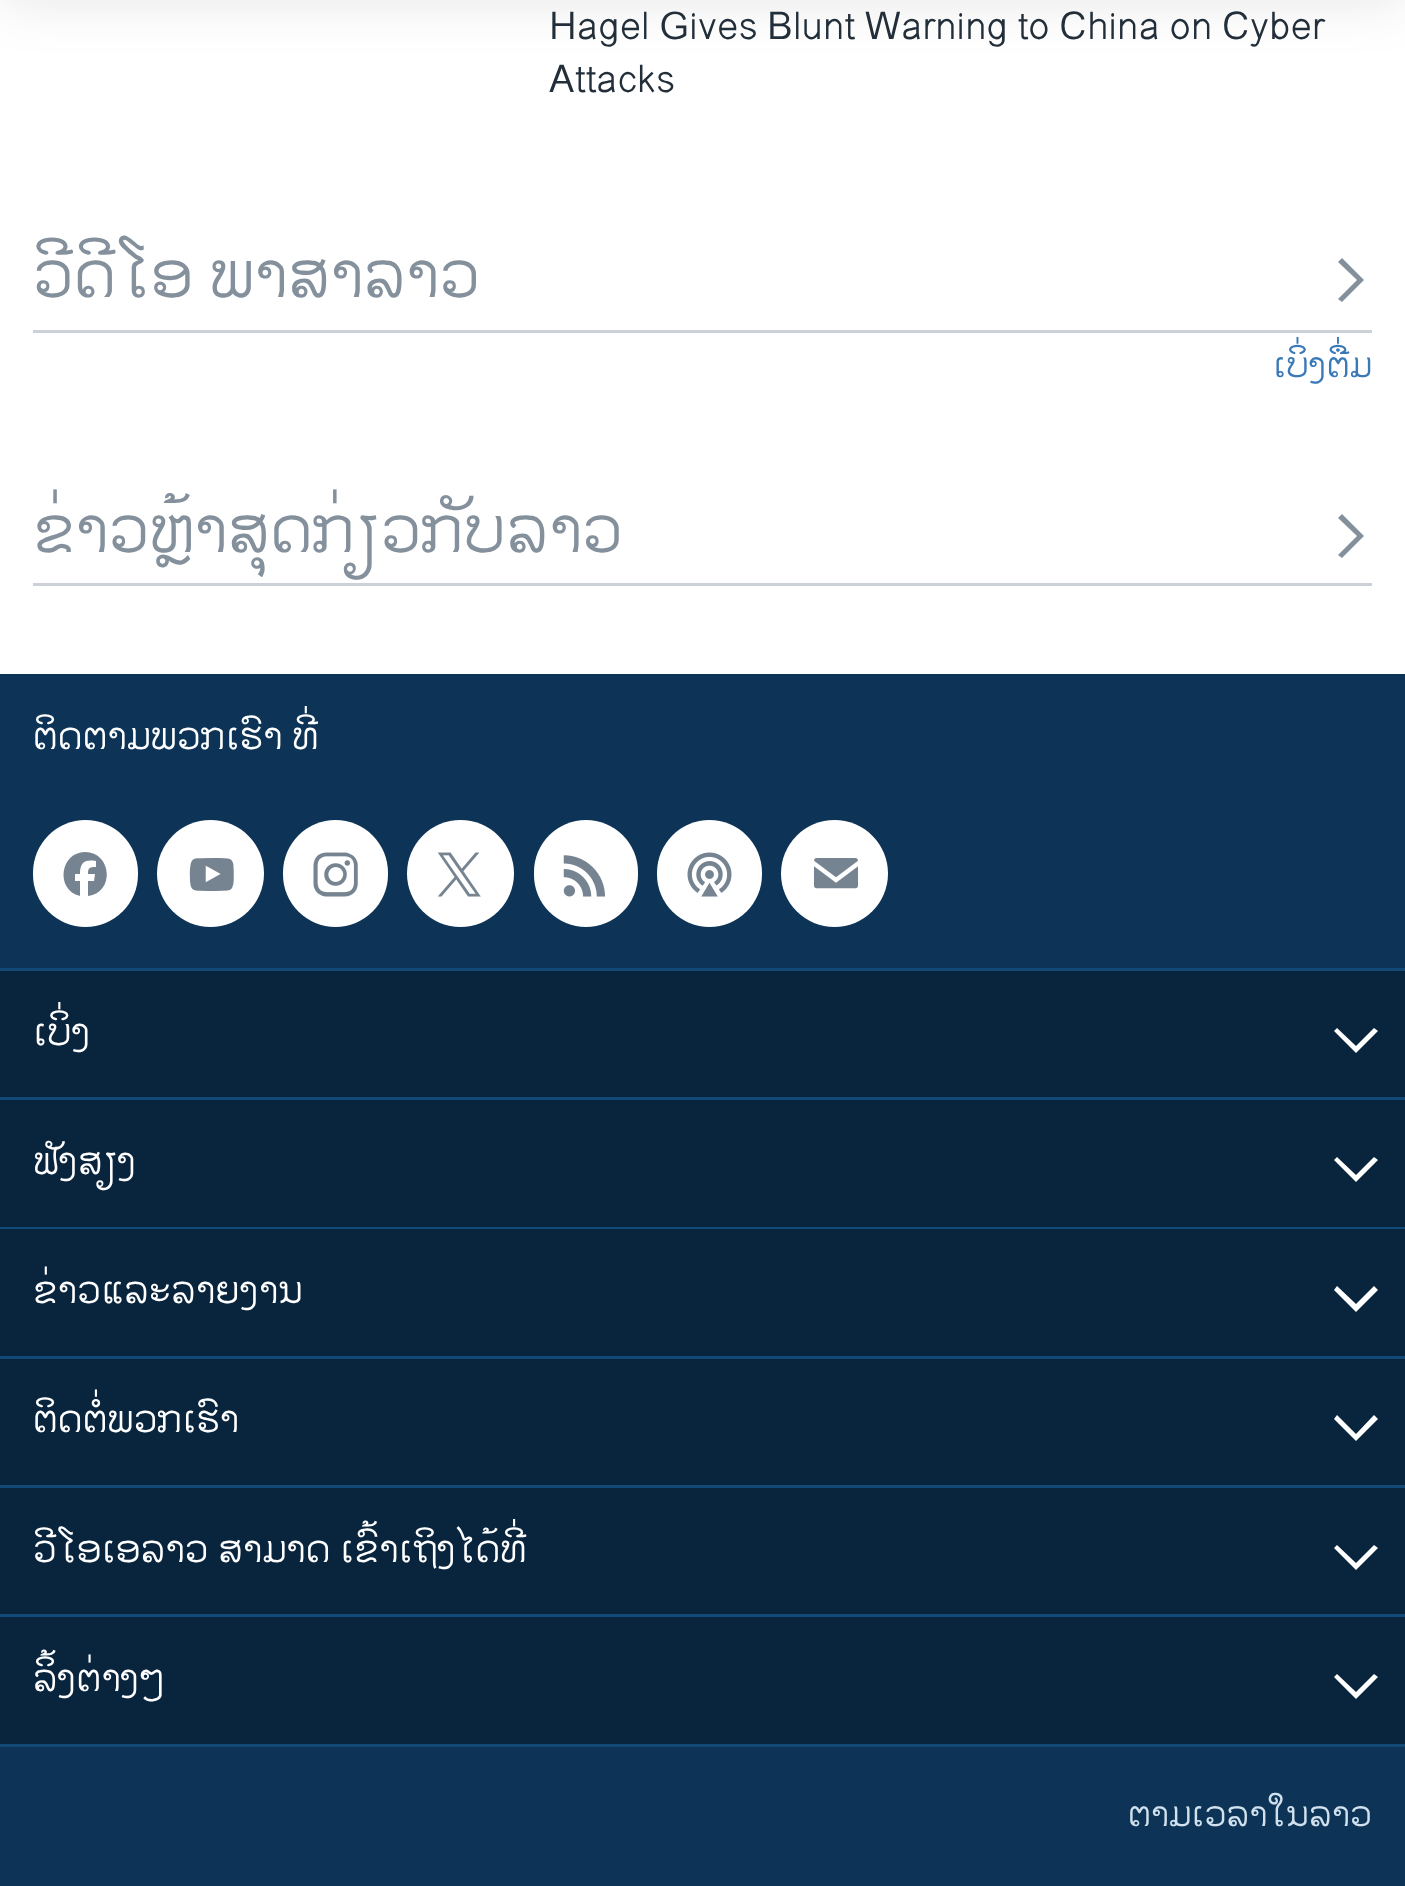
(async () => {
const canvas = document.querySelector("canvas")
canvas.width = 1405
canvas.height = 1886
const c = canvas.getContext("2d")
c.miterLimit = 4
c.fontKerning = "normal"
function T(s,x,y){c.fillText(s,x,y)}
function R(x,y,w,h){c.fillRect(x,y,w,h)}
function Q(x,y,w,h,r){c.beginPath();c.roundRect(x,y,w,h,r);c.fill()}
async function I(src,x,y,w,h){const img=new Image();img.src=src;await img.decode();c.drawImage(img,x,y,w,h)}
let path
c.fillStyle="#fff"
R(0,0,1405,1886)
c.fillStyle="#0000001a"
c.filter="blur(27.5px)"
c.beginPath()
c.rect(0,-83,1405,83)
c.fill()
c.filter="none"
c.font="38.5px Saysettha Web"
c.fillStyle="#222f3a"
T("Hagel Gives Blunt Warning to China on Cyber",549,39)
T("Attacks",549,92)
c.fillStyle="#cbd1d6"
R(33,330,1339,3)
c.font="66px Saysettha Web"
c.fillStyle="#84919d"
T("ວີດີໂອ ພາສາລາວ",33,297)
path = new Path2D("M1342 302l22-22l-22-22l-4 4l19 18l-19 19z")
c.fill(path)
c.font="35.75px Saysettha Web"
c.fillStyle="#3a79b7"
T("ເບິ່ງຕື່ມ",1273,377)
c.fillStyle="#cbd1d6"
R(33,583,1339,3)
c.font="66px Saysettha Web"
c.fillStyle="#84919d"
T("ຂ່າວຫຼ້າສຸດກ່ຽວກັບລາວ",33,552)
path = new Path2D("M1342 558l22-22l-22-22l-4 4l19 18l-19 19z")
c.fill(path)
c.fillStyle="#0d3456"
R(0,674,1405,1212)
c.fillStyle="#134976"
R(0,1744,1405,3)
c.font="38.5px Saysettha Web"
c.fillStyle="#fff"
T("ຕິດຕາມພວກເຮົາ ທີ່",33,749)
Q(33,820,105,107,52.5)
c.fillStyle="#768492"
path = new Path2D("M85 852c-25 0-30 38-5 44v-15h-5v-7h5c0-11 4-15 16-13v6c-7 0-8 1-8 7h7l-1 7h-6v15c27-3 24-44-3-44z")
c.fill(path)
c.fillStyle="#fff"
c.beginPath()
c.arc(210.5,873.5,53.5,0,7)
c.fill()
await I("1.png",189,858,45,34)
Q(283,820,105,107,52.5)
await I("2.png",313,852,45,45)
c.beginPath()
c.arc(460.5,873.5,53.5,0,7)
c.fill()
await I("3.png",437,852,44,45)
Q(534,820,104,107,52)
await I("4.png",563,855,42,42)
Q(657,820,105,107,52.5)
await I("5.png",687,852,45,45)
c.beginPath()
c.arc(834.5,873.5,53.5,0,7)
c.fill()
await I("6.png",814,858,44,31)
c.fillStyle="#134976"
R(0,968,1405,3)
c.fillStyle="#09243d"
R(0,971,1405,126)
c.fillStyle="#fff"
T("ເບິ່ງ",33,1045)
path = new Path2D("M1334 1031l22 22l22-22l-4-3l-18 18l-19-18z")
c.fill(path)
c.fillStyle="#134976"
R(0,1097,1405,3)
c.fillStyle="#09243d"
R(0,1100,1405,127)
c.fillStyle="#fff"
T("ຟັງສຽງ",33,1174)
path = new Path2D("M1334 1160l22 22l22-22l-4-3l-18 18l-19-18z")
c.fill(path)
c.fillStyle="#134976"
R(0,1227,1405,2)
c.fillStyle="#09243d"
R(0,1229,1405,127)
c.fillStyle="#fff"
T("ຂ່າວແລະລາຍງານ",33,1303)
path = new Path2D("M1334 1290l22 22l22-22l-4-4l-18 18l-19-18z")
c.fill(path)
c.fillStyle="#134976"
R(0,1356,1405,3)
c.fillStyle="#09243d"
R(0,1359,1405,126)
c.fillStyle="#fff"
T("ຕິດຕໍ່ພວກເຮົາ",33,1432)
path = new Path2D("M1334 1419l22 22l22-22l-4-4l-18 19l-19-19z")
c.fill(path)
c.fillStyle="#134976"
R(0,1485,1405,3)
c.fillStyle="#09243d"
R(0,1488,1405,126)
c.fillStyle="#fff"
T("ວີໂອເອລາວ ສາມາດ ເຂົ້າເຖິງໄດ້ທີ່",33,1562)
path = new Path2D("M1334 1548l22 22l22-22l-4-3l-18 18l-19-18z")
c.fill(path)
c.fillStyle="#134976"
R(0,1614,1405,3)
c.fillStyle="#09243d"
R(0,1617,1405,127)
c.fillStyle="#fff"
T("ລິ້ງຕ່າງໆ",33,1691)
path = new Path2D("M1334 1677l22 22l22-22l-4-3l-18 18l-19-18z")
c.fill(path)
c.font="35.75px Saysettha Web"
c.fillStyle="#d1e1ee"
T("ຕາມເວລາໃນລາວ",1128,1826)
})()
